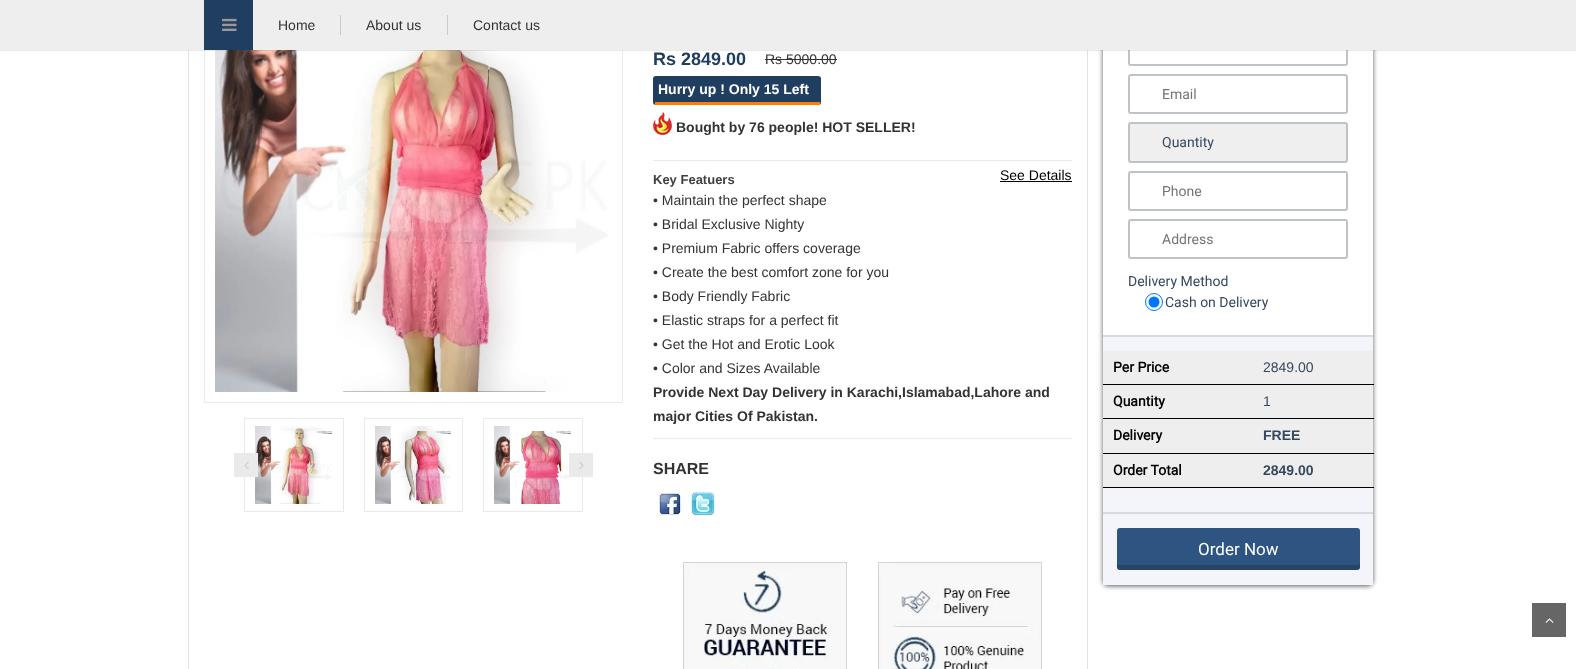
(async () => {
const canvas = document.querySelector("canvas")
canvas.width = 1576
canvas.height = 669
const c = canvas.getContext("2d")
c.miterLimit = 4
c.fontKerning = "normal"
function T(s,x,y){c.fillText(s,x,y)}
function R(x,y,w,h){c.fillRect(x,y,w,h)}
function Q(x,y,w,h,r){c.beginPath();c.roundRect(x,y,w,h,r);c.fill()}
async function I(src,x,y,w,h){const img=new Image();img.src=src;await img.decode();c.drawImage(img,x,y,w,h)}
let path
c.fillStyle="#fff"
R(0,0,1576,669)
c.strokeStyle="#e2e2e2"
c.strokeRect(188.5,-.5,899,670)
c.strokeStyle="#eaeaea"
c.strokeRect(204.5,-.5,418,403)
await I("2.png",215,50,393,342)
c.save()
path = new Path2D("M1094 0h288v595h-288zm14-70h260c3 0 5 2 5 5v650h-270v-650c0-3 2-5 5-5z")
c.clip(path,"evenodd")
c.fillStyle="#000000a6"
c.filter="blur(2.5px)"
c.beginPath()
c.roundRect(1103,-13,270,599,5)
c.fill()
c.filter="none"
c.restore()
c.beginPath()
c.roundRect(1129,27,218,38,2)
c.strokeStyle="#bdc3c7"
c.lineWidth=2
c.stroke()
c.fillStyle="#3232321a"
c.filter="blur(0.5px)"
c.beginPath()
c.rect(0,1,1576,50)
c.fill()
c.filter="none"
c.fillStyle="#eee"
R(0,0,1576,50)
c.fillStyle="#203e60"
R(204,0,49,50)
c.fillStyle="#eaeaea"
R(203,0,1,50)
await I("1.png",222,18,15,13)
c.fillStyle="#cacaca"
R(340,15,1,20)
c.font="14px Liberation Sans"
c.fillStyle="#333"
T("Home",278,30)
c.fillStyle="#cacaca"
R(447,15,1,20)
c.fillStyle="#333"
T("About us",366,30)
T("Contact us",473,30)
c.strokeStyle="#eaeaea"
c.lineWidth=1
c.strokeRect(244.5,418.5,99,93)
await I("3.png",255,426,77,78)
c.strokeRect(364.5,418.5,98,93)
await I("4.png",375,426,76,78)
c.strokeRect(483.5,418.5,99,93)
await I("5.png",494,426,77,78)
c.fillStyle="#eaeaea"
R(234,453,24,24)
await I("6.png",244,461,5,9)
R(569,453,24,24)
await I("7.png",579,461,5,9)
c.font="bold 18px Liberation Sans"
c.fillStyle="#203e60"
T("Rs 2849.00",653,65)
c.font="14px Liberation Sans"
c.fillStyle="#333"
T("Rs 5000.00",765,64)
R(765,59,72,1)
c.fillStyle="#203e60"
Q(653,76,168,29,3)
c.font="bold 14px Liberation Sans"
c.fillStyle="#fff"
T("Hurry up ! Only 15 Left",658,94)
c.fillStyle="#ff7f00"
R(655,102,165,3)
await I("8.png",653,112,19,23)
c.fillStyle="#333"
T("Bought by 76 people! HOT SELLER!",676,132)
c.font="14px Liberation Sans"
c.fillStyle="#000"
T("See Details",1000,180)
R(1000,181,72,1)
c.fillStyle="#eaeaea"
R(653,160,419,1)
c.font="bold 13px Liberation Sans"
c.fillStyle="#404040"
T("Key Featuers",653,184)
c.font="14px Liberation Sans"
c.fillStyle="#333"
T("• Maintain the perfect shape",653,205)
T("• Bridal Exclusive Nighty",653,229)
T("• Premium Fabric offers coverage",653,253)
T("• Create the best comfort zone for you",653,277)
T("• Body Friendly Fabric",653,301)
T("• Elastic straps for a perfect fit",653,325)
T("• Get the Hot and Erotic Look",653,349)
T("• Color and Sizes Available",653,373)
c.font="bold 14px Liberation Sans"
T("Provide Next Day Delivery in Karachi,Islamabad,Lahore and",653,397)
T("major Cities Of Pakistan.",653,421)
c.fillStyle="#eaeaea"
R(653,438,419,1)
c.font="bold 16px Liberation Sans"
c.fillStyle="#333"
T("SHARE",653,474)
await I("9.png",658,492,24,24)
await I("10.png",691,492,24,24)
await I("11.png",683,562,164,107)
await I("12.png",878,562,164,107)
c.beginPath()
c.roundRect(1129,75,218,38,2)
c.strokeStyle="#bdc3c7"
c.lineWidth=2
c.stroke()
c.font="14px Roboto"
c.fillStyle="#757575"
T("Email",1162,99)
c.fillStyle="#efefef"
c.beginPath()
c.roundRect(1129,123,218,39,2)
c.fill()
c.stroke()
c.fillStyle="#34495e"
T("Quantity",1162,147)
c.beginPath()
c.roundRect(1129,172,218,38,2)
c.stroke()
c.fillStyle="#757575"
T("Phone",1162,196)
c.beginPath()
c.roundRect(1129,220,218,38,2)
c.stroke()
T("Address",1162,244)
c.fillStyle="#34495e"
T("Delivery Method",1128,286)
c.beginPath()
c.arc(1154,302,8.5,0,7)
c.strokeStyle="#0075ff"
c.lineWidth=1
c.stroke()
c.fillStyle="#0075ff"
c.beginPath()
c.arc(1154,302,5.5,0,7)
c.fill()
c.fillStyle="#34495e"
T("Cash on Delivery",1165,307)
c.fillStyle="#f3f5fa"
R(1103,337,270,175)
c.fillStyle="#d6dbdf"
R(1103,335,270,2)
c.fillStyle="#eee"
R(1103,351,270,33)
c.font="bold 14px Roboto"
c.fillStyle="#000"
T("Per Price",1113,372)
R(1103,384,271,1)
c.font="14px Liberation Sans"
c.fillStyle="#34495e"
T("2849.00",1263,372)
c.fillStyle="#eee"
R(1103,385,270,33)
c.font="bold 14px Roboto"
c.fillStyle="#000"
T("Quantity",1113,406)
R(1103,418,271,1)
c.font="14px Liberation Sans"
c.fillStyle="#34495e"
T("1",1263,406)
c.fillStyle="#eee"
R(1103,419,270,34)
c.font="bold 14px Roboto"
c.fillStyle="#000"
T("Delivery",1113,440)
R(1103,453,271,1)
c.font="bold 14px Liberation Sans"
c.fillStyle="#34495e"
T("FREE",1263,440)
c.fillStyle="#eee"
R(1103,454,270,33)
c.font="bold 14px Roboto"
c.fillStyle="#000"
T("Order Total",1113,475)
R(1103,487,271,1)
c.font="bold 14px Liberation Sans"
c.fillStyle="#34495e"
T("2849.00",1263,475)
c.fillStyle="#f3f5fa"
R(1103,514,270,71)
c.fillStyle="#d6dbdf"
R(1103,512,270,2)
c.fillStyle="#2e5582"
Q(1117,528,243,42,3)
c.fillStyle="#00000033"
path = new Path2D("M1117 562v5c0 2 1 3 3 3h237c2 0 3-1 3-3v-5c0 2-1 3-3 3h-238l-2-1z")
c.fill(path)
c.font="17px Roboto"
c.fillStyle="#fff"
T("Order Now",1198,555)
c.fillStyle="#666"
R(1532,603,34,34)
await I("13.png",1545,618,9,5)
})()
